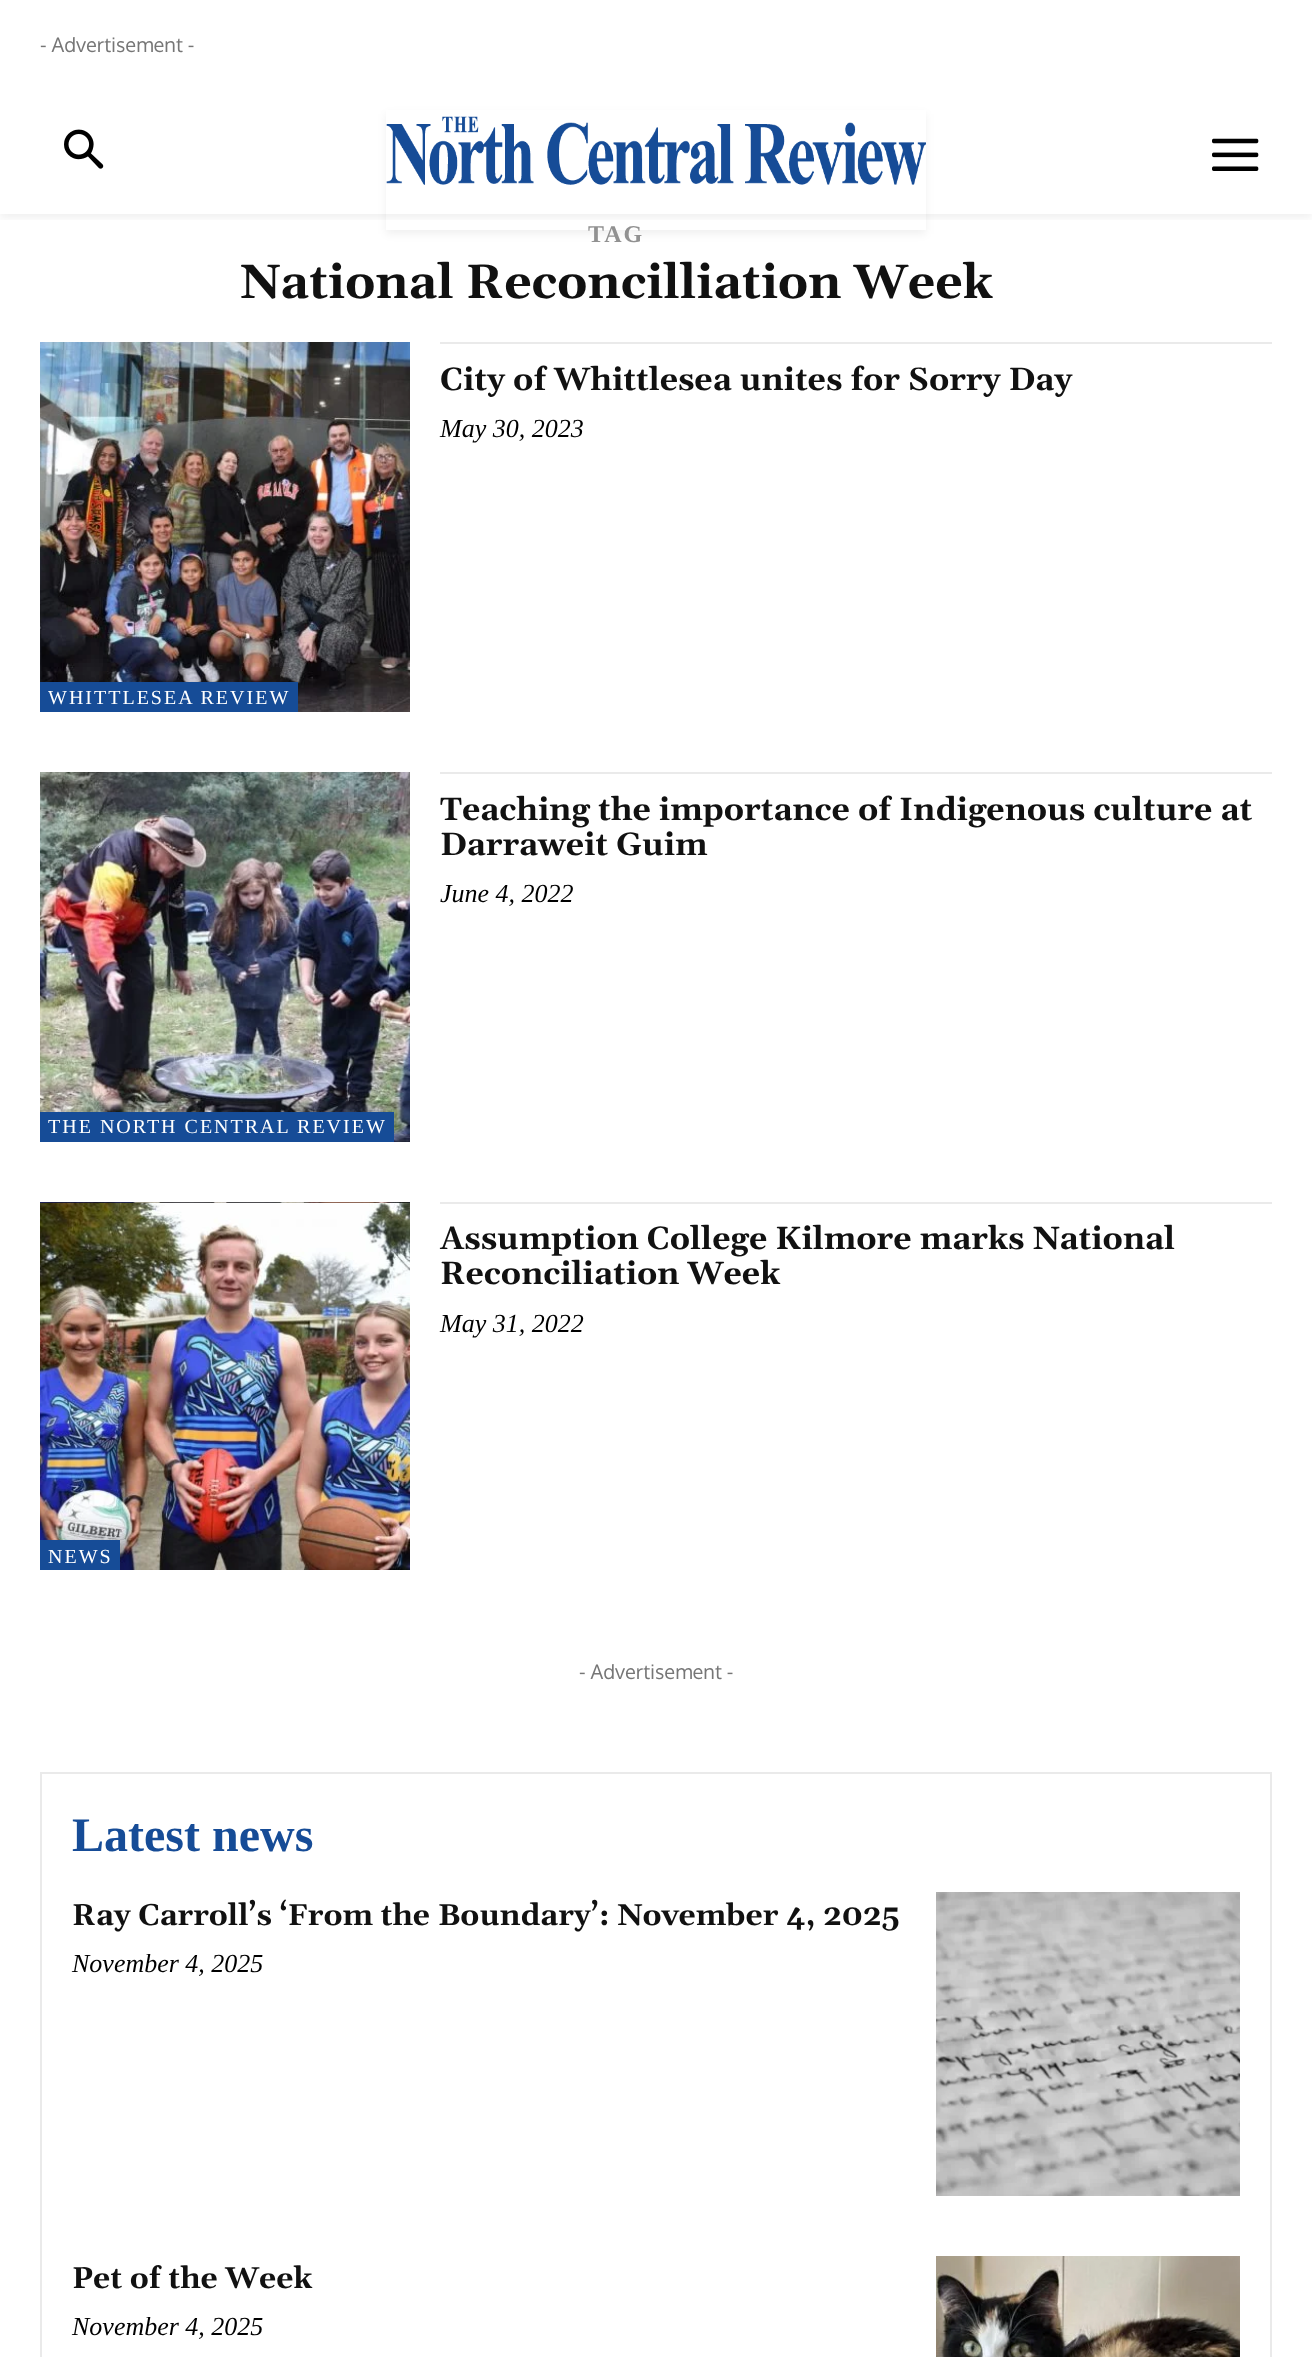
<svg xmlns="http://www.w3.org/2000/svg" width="1312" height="2357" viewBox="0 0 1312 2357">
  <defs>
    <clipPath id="clip1"><path d="M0 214h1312v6H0z"/></clipPath>
    <clipPath id="clip2"><path d="M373 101H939V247H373ZM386 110H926V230H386Z" clip-rule="evenodd"/></clipPath>
  </defs>
  <rect width="100%" height="100%" fill="#fff"/>
  <image x="64" y="129" width="40" height="40" href="img/1.png"/>
  <image x="386" y="116" width="540" height="69" href="img/2.png"/>
  <image x="1212" y="138" width="47" height="33" href="img/3.png"/>
  <g clip-path="url(#clip1)">
    <path d="M0 4h1312v214H0z" fill="#0000000f" filter="blur(4px)"/>
  </g>
  <g clip-path="url(#clip2)">
    <path d="M386 114h540v120H386z" fill="#0000000f" filter="blur(4px)"/>
  </g>
  <path d="M440 342h832v2H440z" fill="#eaeaea"/>
  <image x="40" y="342" width="370" height="370" href="img/4.png"/>
  <path d="M40 682h258v30H40z" fill="#164c97"/>
  <path d="M440 772h832v2H440z" fill="#eaeaea"/>
  <image x="40" y="772" width="370" height="370" href="img/5.png"/>
  <path d="M40 1112h354v30H40z" fill="#164c97"/>
  <path d="M440 1202h832v2H440z" fill="#eaeaea"/>
  <image x="40" y="1202" width="370" height="368" href="img/6.png"/>
  <path d="M40 1540h80v30H40z" fill="#164c97"/>
  <path d="M41 1773h1230v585H41z" fill="none" stroke="#eaeaea" stroke-width="2"/>
  <image x="936" y="1892" width="304" height="304" href="img/7.png"/>
  <image x="936" y="2256" width="304" height="101" href="img/8.png"/>
  <text x="40" y="52" font-family="Oxygen" font-size="20" fill="#767676">- Advertisement -</text>
  <text x="588" y="242" font-family="Liberation Serif" font-size="24" font-weight="bold" letter-spacing="2" fill="#919191">TAG</text>
  <text x="240" y="298" font-family="Gelasio" font-size="48" font-weight="bold" fill="#111">National Reconcilliation Week</text>
  <text x="440" y="390" font-family="Gelasio" font-size="32" font-weight="bold" fill="#111">City of Whittlesea unites for Sorry Day</text>
  <text x="440" y="437" font-family="Liberation Serif" font-size="26" font-style="italic" fill="#000">May 30, 2023</text>
  <text x="48" y="704" font-family="Liberation Serif" font-size="20" letter-spacing="2" fill="#fff">WHITTLESEA REVIEW</text>
  <g font-family="Gelasio" font-size="32" font-weight="bold" fill="#111">
    <text x="440" y="820">Teaching the importance of Indigenous culture at</text>
    <text x="440" y="855">Darraweit Guim</text>
  </g>
  <text x="440" y="902" font-family="Liberation Serif" font-size="26" font-style="italic" fill="#000">June 4, 2022</text>
  <text x="48" y="1133" font-family="Liberation Serif" font-size="20" letter-spacing="2" fill="#fff">THE NORTH CENTRAL REVIEW</text>
  <g font-family="Gelasio" font-size="32" font-weight="bold" fill="#111">
    <text x="440" y="1249">Assumption College Kilmore marks National</text>
    <text x="440" y="1284">Reconciliation Week</text>
  </g>
  <text x="440" y="1332" font-family="Liberation Serif" font-size="26" font-style="italic" fill="#000">May 31, 2022</text>
  <text x="48" y="1563" font-family="Liberation Serif" font-size="20" letter-spacing="2" fill="#fff">NEWS</text>
  <text x="579" y="1679" font-family="Oxygen" font-size="20" fill="#767676">- Advertisement -</text>
  <text x="72" y="1851" font-family="Liberation Serif" font-size="48" font-weight="bold" fill="#164c97">Latest news</text>
  <text x="72" y="1925" font-family="Gelasio" font-size="30" font-weight="bold" fill="#111">Ray Carroll’s ‘From the Boundary’: November 4, 2025</text>
  <text x="72" y="1972" font-family="Liberation Serif" font-size="26" font-style="italic" fill="#000">November 4, 2025</text>
  <text x="72" y="2288" font-family="Gelasio" font-size="30" font-weight="bold" fill="#111">Pet of the Week</text>
  <text x="72" y="2335" font-family="Liberation Serif" font-size="26" font-style="italic" fill="#000">November 4, 2025</text>
</svg>
